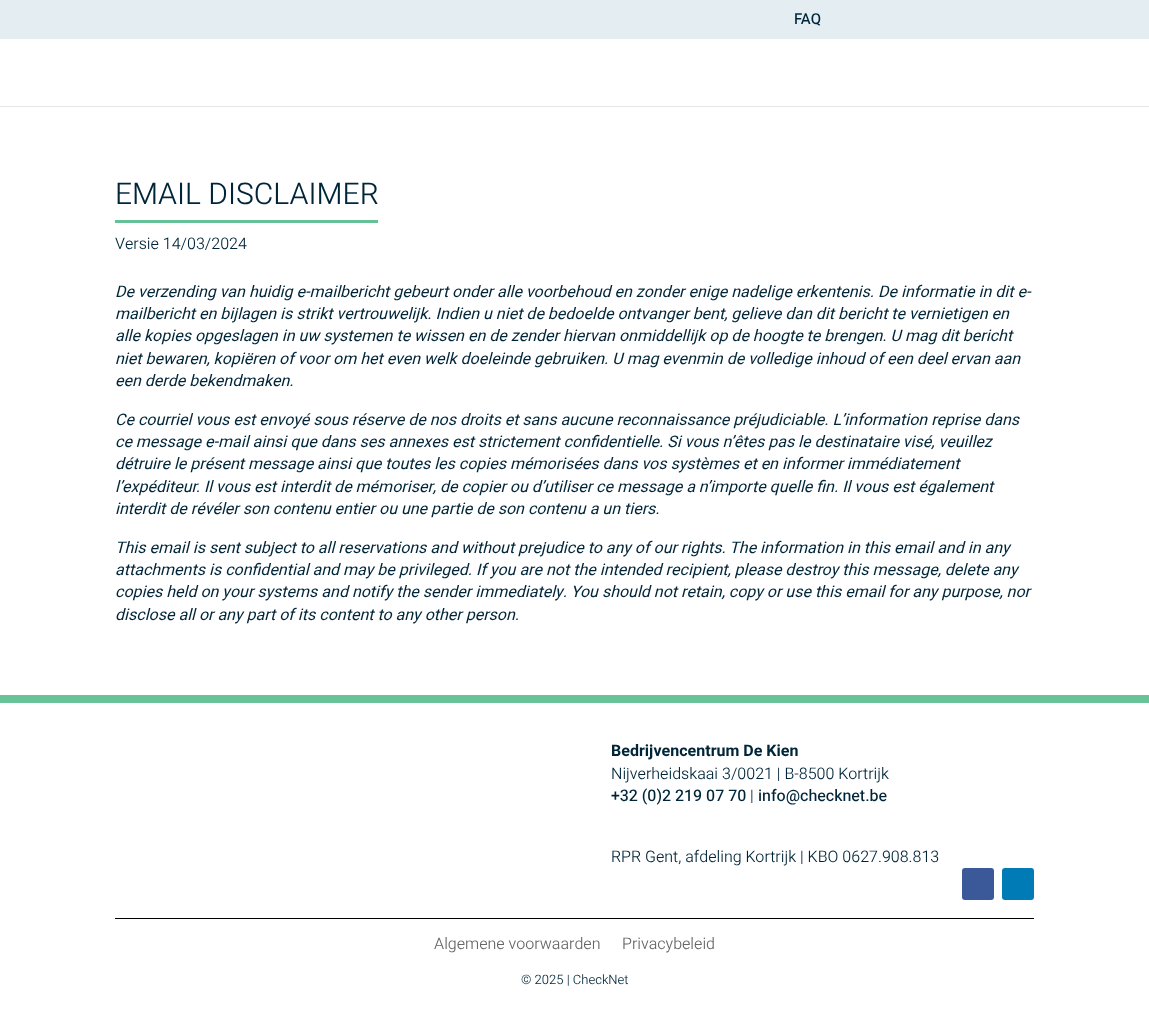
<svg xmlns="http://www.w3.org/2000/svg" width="1149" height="1030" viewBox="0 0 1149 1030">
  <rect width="100%" height="100%" fill="#fff"/>
  <path d="M0 0h1149v39H0z" fill="#e4edf2"/>
  <path d="M0 106h1149v1H0z" fill="#e6e6e6"/>
  <path d="M115 220h263v3H115z" fill="#67c197"/>
  <path d="M0 695h1149v8H0z" fill="#68c398"/>
  <rect x="962" y="868" width="32" height="32" rx="3" fill="#3b5998"/>
  <rect x="1002" y="868" width="32" height="32" rx="3" fill="#007bb6"/>
  <path d="M115 918h919v1H115z" fill="#000"/>
  <text x="794" y="24" font-family="Heebo" font-size="15" font-weight="500" fill="#002538">FAQ</text>
  <text x="115" y="204" font-family="Heebo" font-size="30" font-weight="300" fill="#002538">EMAIL DISCLAIMER</text>
  <text x="115" y="249" font-family="Heebo" font-size="16" font-weight="300" fill="#002538">Versie 14/03/2024</text>
  <g font-family="Heebo" font-size="16" font-style="italic" fill="#002538">
    <text x="115" y="297">De verzending van huidig e-mailbericht gebeurt onder alle voorbehoud en zonder enige nadelige erkentenis. De informatie in dit e-</text>
    <text x="115" y="319">mailbericht en bijlagen is strikt vertrouwelijk. Indien u niet de bedoelde ontvanger bent, gelieve dan dit bericht te vernietigen en</text>
    <text x="115" y="341">alle kopies opgeslagen in uw systemen te wissen en de zender hiervan onmiddellijk op de hoogte te brengen. U mag dit bericht</text>
    <text x="115" y="364">niet bewaren, kopiëren of voor om het even welk doeleinde gebruiken. U mag evenmin de volledige inhoud of een deel ervan aan</text>
    <text x="115" y="386">een derde bekendmaken.</text>
    <text x="115" y="425">Ce courriel vous est envoyé sous réserve de nos droits et sans aucune reconnaissance préjudiciable. L’information reprise dans</text>
    <text x="115" y="447">ce message e-mail ainsi que dans ses annexes est strictement confidentielle. Si vous n’êtes pas le destinataire visé, veuillez</text>
    <text x="115" y="469">détruire le présent message ainsi que toutes les copies mémorisées dans vos systèmes et en informer immédiatement</text>
    <text x="115" y="492">l’expéditeur. Il vous est interdit de mémoriser, de copier ou d’utiliser ce message a n’importe quelle fin. Il vous est également</text>
    <text x="115" y="514">interdit de révéler son contenu entier ou une partie de son contenu a un tiers.</text>
    <text x="115" y="553">This email is sent subject to all reservations and without prejudice to any of our rights. The information in this email and in any</text>
    <text x="115" y="575">attachments is confidential and may be privileged. If you are not the intended recipient, please destroy this message, delete any</text>
    <text x="115" y="597">copies held on your systems and notify the sender immediately. You should not retain, copy or use this email for any purpose, nor</text>
    <text x="115" y="620">disclose all or any part of its content to any other person.</text>
  </g>
  <text x="611" y="756" font-family="Heebo" font-size="16" font-weight="bold" fill="#002538">Bedrijvencentrum De Kien</text>
  <text x="611" y="779" font-family="Heebo" font-size="16" font-weight="300" fill="#002538">Nijverheidskaai 3/0021 | B-8500 Kortrijk</text>
  <text x="611" y="801" font-family="Heebo" font-size="16" font-weight="500" fill="#002538">+32 (0)2 219 07 70</text>
  <text x="750" y="801" font-family="Heebo" font-size="16" font-weight="300" fill="#002538">|</text>
  <text x="758" y="801" font-family="Heebo" font-size="16" font-weight="500" fill="#002538">info@checknet.be</text>
  <text x="611" y="862" font-family="Heebo" font-size="16" font-weight="300" fill="#002538">RPR Gent, afdeling Kortrijk | KBO 0627.908.813</text>
  <g font-family="Heebo" font-size="16" font-weight="300" fill="#666">
    <text x="434" y="949">Algemene voorwaarden</text>
    <text x="622" y="949">Privacybeleid</text>
  </g>
  <text x="521" y="984" font-family="Heebo" font-size="13" font-weight="300" fill="#002538">© 2025 | CheckNet</text>
</svg>
